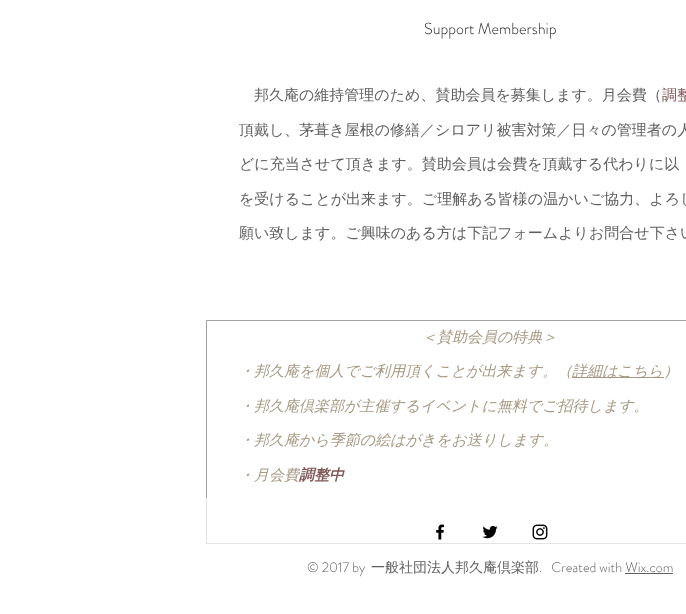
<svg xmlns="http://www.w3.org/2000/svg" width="686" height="614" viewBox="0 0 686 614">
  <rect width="100%" height="100%" fill="#fff"/>
  <path d="M572 377h92v1H572z" fill="#a69883"/>
  <path d="M206.5 320.5h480v223H206.5z" fill="none" stroke="#a0a09f"/>
  <path d="M206 498h480v46H206z" fill="#ffffffb3"/>
  <image x="436" y="524" width="9" height="16" href="img/1.png"/>
  <image x="482" y="525" width="16" height="14" href="img/2.png"/>
  <image x="532" y="524" width="16" height="16" href="img/3.png"/>
  <path d="M625 573h48v1H625z" fill="#605e5e"/>
  <text x="424" y="34" font-family="'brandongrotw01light'" font-size="16" font-weight="300" fill="#292929">Support Membership</text>
  <text x="254" y="100" font-family="WenQuanYi Zen Hei" font-size="15" font-weight="500" fill="#605e5e">邦久庵の維持管理のため、賛助会員を募集します。月会費（</text>
  <text x="662" y="100" font-family="WenQuanYi Zen Hei" font-size="15" font-weight="500" fill="#805858">調整</text>
  <g font-family="WenQuanYi Zen Hei" font-size="15" font-weight="500" fill="#605e5e">
    <text x="239" y="135">頂戴し、茅葺き屋根の修繕／シロアリ被害対策／日々の管理者の人</text>
    <text x="239" y="169">どに充当させて頂きます。賛助会員は会費を頂戴する代わりに以</text>
    <text x="239" y="204">を受けることが出来ます。ご理解ある皆様の温かいご協力、よろし</text>
    <text x="239" y="238">願い致します。ご興味のある方は下記フォームよりお問合せ下さい</text>
  </g>
  <g font-family="WenQuanYi Zen Hei" font-size="15" font-weight="500" font-style="italic" fill="#a69883">
    <text x="422" y="342">＜賛助会員の特典＞</text>
    <text x="239" y="376">・邦久庵を個人でご利用頂くことが出来ます。（</text>
    <text x="572" y="376">詳細はこちら）</text>
    <text x="239" y="411">・邦久庵倶楽部が主催するイベントに無料でご招待します。</text>
    <text x="239" y="445">・邦久庵から季節の絵はがきをお送りします。</text>
    <text x="239" y="480">・月会費</text>
  </g>
  <text x="299" y="480" font-family="WenQuanYi Zen Hei" font-size="15" font-weight="bold" font-style="italic" fill="#805858">調整中</text>
  <text x="307" y="572" font-family="'brandongrotw01light'" font-size="14" font-weight="300" fill="#605e5e">© 2017 by</text>
  <text x="371" y="572" font-family="WenQuanYi Zen Hei" font-size="14" font-weight="500" fill="#605e5e">一般社団法人邦久庵倶楽部</text>
  <text x="539" y="572" font-family="'brandongrotw01light'" font-size="14" font-weight="300" fill="#605e5e" xml:space="preserve">.   Created with Wix.com</text>
</svg>
